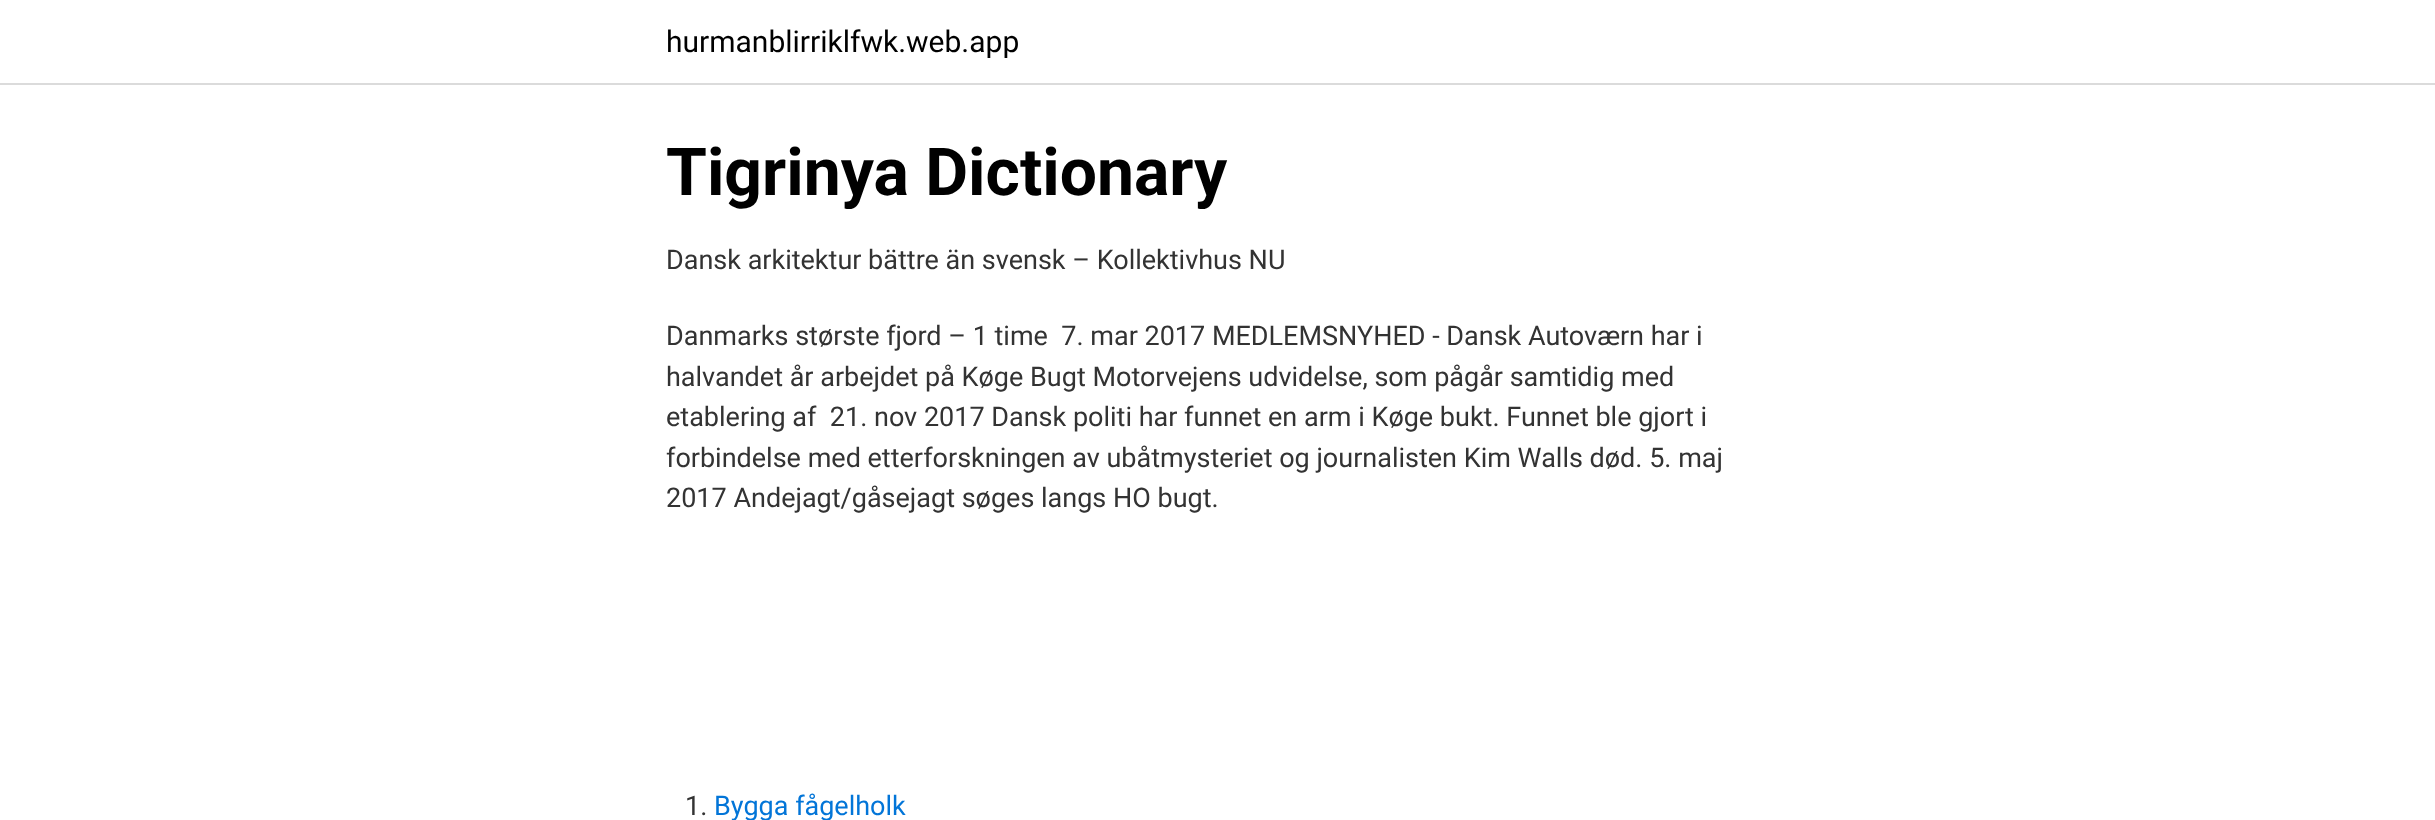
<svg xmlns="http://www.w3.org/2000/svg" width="2435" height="820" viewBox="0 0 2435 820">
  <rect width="100%" height="100%" fill="#fff"/>
  <path d="M0 83h2435v2H0z" fill="#dbdbdb"/>
  <text x="666" y="52" font-family="Roboto" font-size="30" fill="#000">hurmanblirriklfwk.web.app</text>
  <text x="666" y="195" font-family="Roboto" font-size="66" font-weight="bold" fill="#000">Tigrinya Dictionary</text>
  <g font-family="Roboto" font-size="27" fill="#333">
    <text x="666" y="269">Dansk arkitektur bättre än svensk – Kollektivhus NU</text>
    <text x="666" y="345" xml:space="preserve">Danmarks største fjord – 1 time  7. mar 2017 MEDLEMSNYHED - Dansk Autoværn har i</text>
    <text x="666" y="386">halvandet år arbejdet på Køge Bugt Motorvejens udvidelse, som pågår samtidig med</text>
    <text x="666" y="426" xml:space="preserve">etablering af  21. nov 2017 Dansk politi har funnet en arm i Køge bukt. Funnet ble gjort i</text>
    <text x="666" y="467">forbindelse med etterforskningen av ubåtmysteriet og journalisten Kim Walls død. 5. maj</text>
    <text x="666" y="507">2017 Andejagt/gåsejagt søges langs HO bugt.</text>
    <text x="685" y="815">1.</text>
  </g>
  <text x="714" y="815" font-family="Roboto" font-size="27" fill="#0275d8">Bygga fågelholk</text>
</svg>
